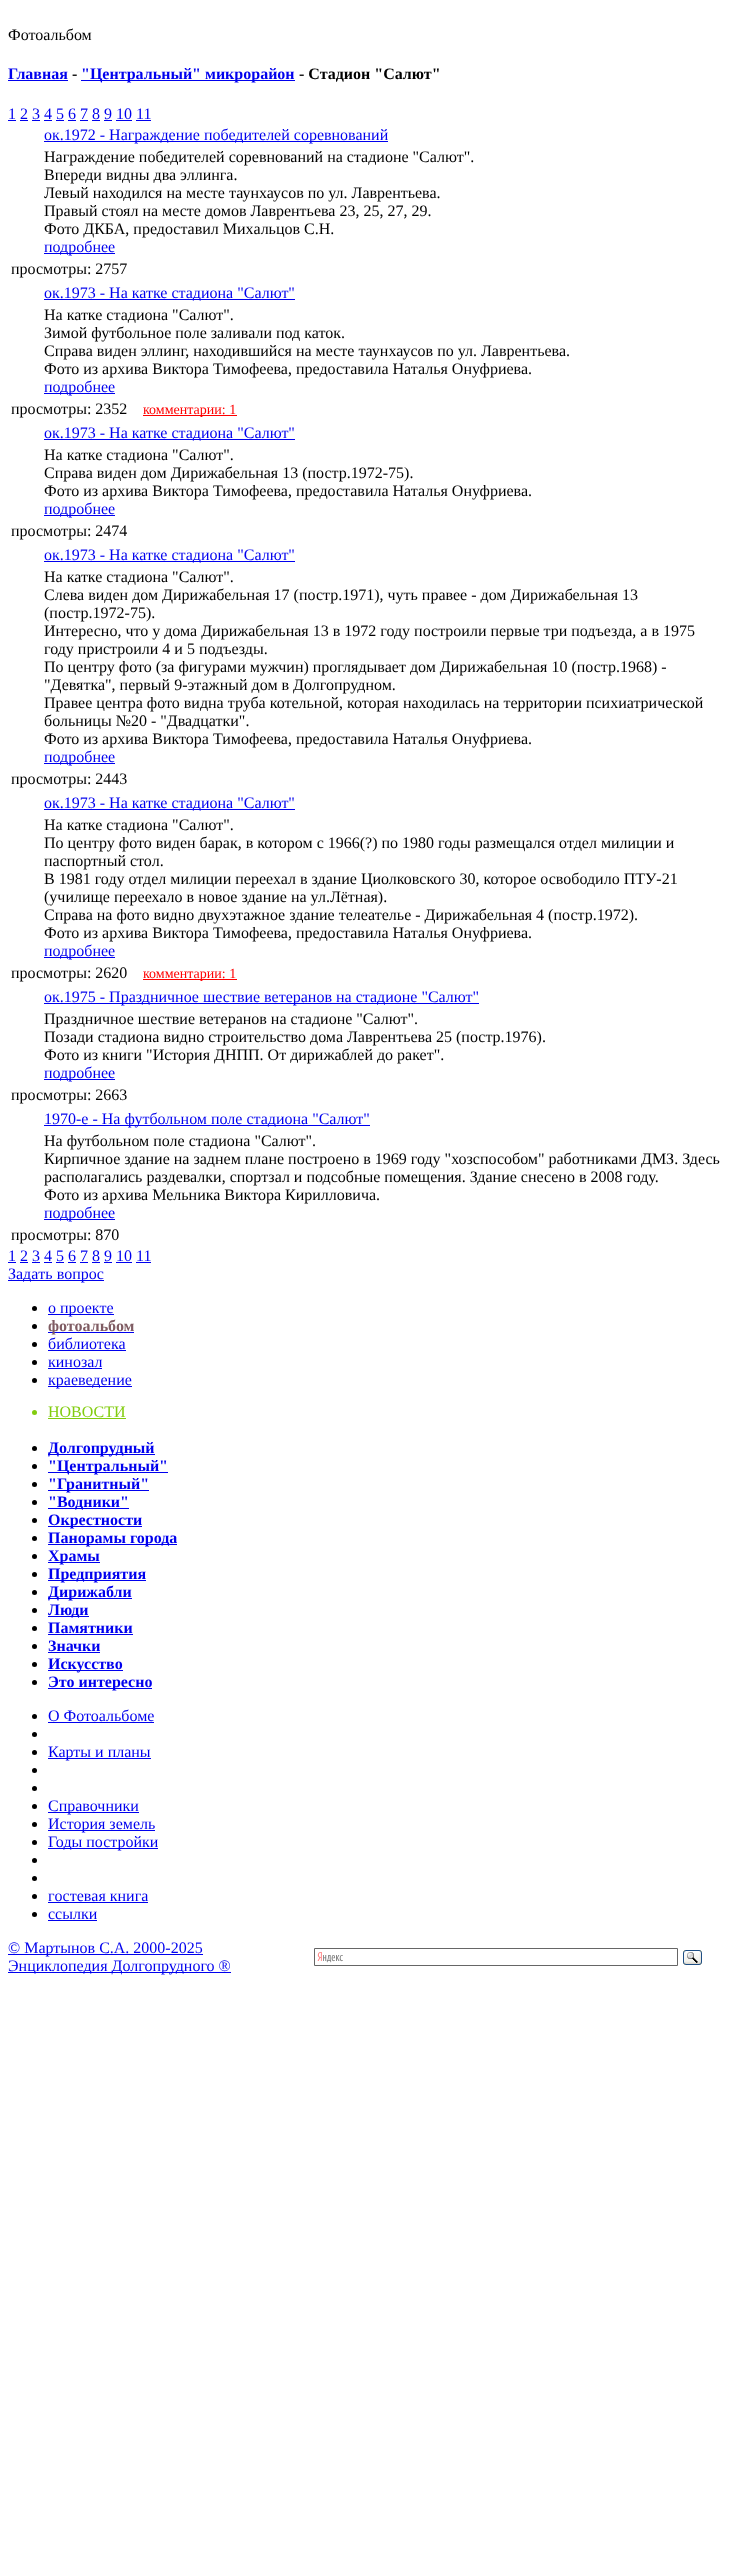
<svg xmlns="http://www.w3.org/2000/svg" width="737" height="2561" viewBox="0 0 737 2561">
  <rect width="100%" height="100%" fill="#fff"/>
  <path d="M8 80h60v1H8z" fill="#00e"/>
  <path d="M81 80h214v1H81z" fill="#00e"/>
  <path d="M8 120h8v1H8z" fill="#00e"/>
  <path d="M20 120h8v1H20z" fill="#00e"/>
  <path d="M32 120h8v1H32z" fill="#00e"/>
  <path d="M44 120h8v1H44z" fill="#00e"/>
  <path d="M56 120h8v1H56z" fill="#00e"/>
  <path d="M68 120h8v1H68z" fill="#00e"/>
  <path d="M80 120h8v1H80z" fill="#00e"/>
  <path d="M92 120h8v1H92z" fill="#00e"/>
  <path d="M104 120h8v1H104z" fill="#00e"/>
  <path d="M116 120h16v1H116z" fill="#00e"/>
  <path d="M136 120h15v1H136z" fill="#00e"/>
  <path d="M44 141h344v1H44z" fill="#00e"/>
  <path d="M44 253h71v1H44z" fill="#00e"/>
  <path d="M44 299h251v1H44z" fill="#00e"/>
  <path d="M44 393h71v1H44z" fill="#00e"/>
  <path d="M143 415h94v1H143z" fill="#f00"/>
  <path d="M44 439h251v1H44z" fill="#00e"/>
  <path d="M44 515h71v1H44z" fill="#00e"/>
  <path d="M44 561h251v1H44z" fill="#00e"/>
  <path d="M44 763h71v1H44z" fill="#00e"/>
  <path d="M44 809h251v1H44z" fill="#00e"/>
  <path d="M44 957h71v1H44z" fill="#00e"/>
  <path d="M143 979h94v1H143z" fill="#f00"/>
  <path d="M44 1003h435v1H44z" fill="#00e"/>
  <path d="M44 1079h71v1H44z" fill="#00e"/>
  <path d="M44 1125h326v1H44z" fill="#00e"/>
  <path d="M44 1219h71v1H44z" fill="#00e"/>
  <path d="M8 1262h8v1H8z" fill="#00e"/>
  <path d="M20 1262h8v1H20z" fill="#00e"/>
  <path d="M32 1262h8v1H32z" fill="#00e"/>
  <path d="M44 1262h8v1H44z" fill="#00e"/>
  <path d="M56 1262h8v1H56z" fill="#00e"/>
  <path d="M68 1262h8v1H68z" fill="#00e"/>
  <path d="M80 1262h8v1H80z" fill="#00e"/>
  <path d="M92 1262h8v1H92z" fill="#00e"/>
  <path d="M104 1262h8v1H104z" fill="#00e"/>
  <path d="M116 1262h16v1H116z" fill="#00e"/>
  <path d="M136 1262h15v1H136z" fill="#00e"/>
  <path d="M8 1280h96v1H8z" fill="#00e"/>
  <circle cx="34.5" cy="1308.5" r="2.5" fill="#000"/>
  <path d="M48 1314h66v1H48z" fill="#00e"/>
  <circle cx="34.5" cy="1326.5" r="2.5" fill="#000"/>
  <path d="M48 1332h86v1H48z" fill="#00e"/>
  <circle cx="34.5" cy="1344.5" r="2.5" fill="#000"/>
  <path d="M48 1350h78v1H48z" fill="#00e"/>
  <circle cx="34.5" cy="1362.5" r="2.5" fill="#000"/>
  <path d="M48 1368h54v1H48z" fill="#00e"/>
  <circle cx="34.5" cy="1380.5" r="2.5" fill="#000"/>
  <path d="M48 1386h84v1H48z" fill="#00e"/>
  <circle cx="34.5" cy="1412.5" r="2.5" fill="#82cc0f"/>
  <path d="M48 1418h78v1H48z" fill="#82cc0f"/>
  <circle cx="34.5" cy="1448.5" r="2.5" fill="#000"/>
  <path d="M48 1454h107v1H48z" fill="#00e"/>
  <circle cx="34.5" cy="1466.5" r="2.5" fill="#000"/>
  <path d="M48 1472h120v1H48z" fill="#00e"/>
  <circle cx="34.5" cy="1484.5" r="2.5" fill="#000"/>
  <path d="M48 1490h101v1H48z" fill="#00e"/>
  <circle cx="34.5" cy="1502.5" r="2.5" fill="#000"/>
  <path d="M48 1508h81v1H48z" fill="#00e"/>
  <circle cx="34.5" cy="1520.5" r="2.5" fill="#000"/>
  <path d="M48 1526h94v1H48z" fill="#00e"/>
  <circle cx="34.5" cy="1538.5" r="2.5" fill="#000"/>
  <path d="M48 1544h129v1H48z" fill="#00e"/>
  <circle cx="34.5" cy="1556.5" r="2.5" fill="#000"/>
  <path d="M48 1562h52v1H48z" fill="#00e"/>
  <circle cx="34.5" cy="1574.5" r="2.5" fill="#000"/>
  <path d="M48 1580h98v1H48z" fill="#00e"/>
  <circle cx="34.5" cy="1592.5" r="2.5" fill="#000"/>
  <path d="M48 1598h84v1H48z" fill="#00e"/>
  <circle cx="34.5" cy="1610.5" r="2.5" fill="#000"/>
  <path d="M48 1616h41v1H48z" fill="#00e"/>
  <circle cx="34.5" cy="1628.5" r="2.5" fill="#000"/>
  <path d="M48 1634h85v1H48z" fill="#00e"/>
  <circle cx="34.5" cy="1646.5" r="2.5" fill="#000"/>
  <path d="M48 1652h52v1H48z" fill="#00e"/>
  <circle cx="34.5" cy="1664.5" r="2.5" fill="#000"/>
  <path d="M48 1670h75v1H48z" fill="#00e"/>
  <circle cx="34.5" cy="1682.5" r="2.5" fill="#000"/>
  <path d="M48 1688h104v1H48z" fill="#00e"/>
  <circle cx="34.5" cy="1716.5" r="2.5" fill="#000"/>
  <path d="M48 1722h106v1H48z" fill="#00e"/>
  <circle cx="34.5" cy="1734.5" r="2.5" fill="#000"/>
  <circle cx="34.5" cy="1752.5" r="2.5" fill="#000"/>
  <path d="M48 1758h103v1H48z" fill="#00e"/>
  <circle cx="34.5" cy="1770.5" r="2.5" fill="#000"/>
  <circle cx="34.5" cy="1788.5" r="2.5" fill="#000"/>
  <circle cx="34.5" cy="1806.5" r="2.5" fill="#000"/>
  <path d="M48 1812h91v1H48z" fill="#00e"/>
  <circle cx="34.5" cy="1824.5" r="2.5" fill="#000"/>
  <path d="M48 1830h107v1H48z" fill="#00e"/>
  <circle cx="34.5" cy="1842.5" r="2.5" fill="#000"/>
  <path d="M48 1848h110v1H48z" fill="#00e"/>
  <circle cx="34.5" cy="1860.5" r="2.5" fill="#000"/>
  <circle cx="34.5" cy="1878.5" r="2.5" fill="#000"/>
  <circle cx="34.5" cy="1896.5" r="2.5" fill="#000"/>
  <path d="M48 1902h100v1H48z" fill="#00e"/>
  <circle cx="34.5" cy="1914.5" r="2.5" fill="#000"/>
  <path d="M48 1920h49v1H48z" fill="#00e"/>
  <path d="M8 1954h195v1H8z" fill="#00e"/>
  <path d="M8 1972h223v1H8z" fill="#00e"/>
  <image x="317" y="1952" width="26" height="11" href="img/1.png"/>
  <path d="M314.5 1948.5h363v17H314.5z" fill="none" stroke="#666"/>
  <image x="683" y="1950" width="19" height="15" href="img/2.png"/>
  <text x="8" y="40" font-family="Liberation Serif" font-size="16" fill="#000">Фотоальбом</text>
  <text x="8" y="79" font-family="Liberation Serif" font-size="16" font-weight="bold" fill="#00e">Главная</text>
  <text x="72" y="79" font-family="Liberation Serif" font-size="16" font-weight="bold" fill="#000">-</text>
  <text x="81" y="79" font-family="Liberation Serif" font-size="16" font-weight="bold" fill="#00e">"Центральный" микрорайон</text>
  <text x="299" y="79" font-family="Liberation Serif" font-size="16" font-weight="bold" fill="#000">- Стадион "Салют"</text>
  <g font-family="Liberation Serif" font-size="16" fill="#00e">
    <text x="8" y="119">1 2 3 4 5 6 7 8 9 10 11</text>
    <text x="44" y="140">ок.1972 - Награждение победителей соревнований</text>
  </g>
  <g font-family="Liberation Serif" font-size="16" fill="#000">
    <text x="44" y="162">Награждение победителей соревнований на стадионе "Салют".</text>
    <text x="44" y="180">Впереди видны два эллинга.</text>
    <text x="44" y="198">Левый находился на месте таунхаусов по ул. Лаврентьева.</text>
    <text x="44" y="216">Правый стоял на месте домов Лаврентьева 23, 25, 27, 29.</text>
    <text x="44" y="234">Фото ДКБА, предоставил Михальцов С.Н.</text>
  </g>
  <text x="44" y="252" font-family="Liberation Serif" font-size="16" fill="#00e">подробнее</text>
  <text x="11" y="274" font-family="Liberation Serif" font-size="16" fill="#000">просмотры: 2757</text>
  <text x="44" y="298" font-family="Liberation Serif" font-size="16" fill="#00e">ок.1973 - На катке стадиона "Салют"</text>
  <g font-family="Liberation Serif" font-size="16" fill="#000">
    <text x="44" y="320">На катке стадиона "Салют".</text>
    <text x="44" y="338">Зимой футбольное поле заливали под каток.</text>
    <text x="44" y="356">Справа виден эллинг, находившийся на месте таунхаусов по ул. Лаврентьева.</text>
    <text x="44" y="374">Фото из архива Виктора Тимофеева, предоставила Наталья Онуфриева.</text>
  </g>
  <text x="44" y="392" font-family="Liberation Serif" font-size="16" fill="#00e">подробнее</text>
  <text x="11" y="414" font-family="Liberation Serif" font-size="16" fill="#000">просмотры: 2352</text>
  <text x="143" y="414" font-family="Liberation Serif" font-size="14" fill="#f00">комментарии: 1</text>
  <text x="44" y="438" font-family="Liberation Serif" font-size="16" fill="#00e">ок.1973 - На катке стадиона "Салют"</text>
  <g font-family="Liberation Serif" font-size="16" fill="#000">
    <text x="44" y="460">На катке стадиона "Салют".</text>
    <text x="44" y="478">Справа виден дом Дирижабельная 13 (постр.1972-75).</text>
    <text x="44" y="496">Фото из архива Виктора Тимофеева, предоставила Наталья Онуфриева.</text>
  </g>
  <text x="44" y="514" font-family="Liberation Serif" font-size="16" fill="#00e">подробнее</text>
  <text x="11" y="536" font-family="Liberation Serif" font-size="16" fill="#000">просмотры: 2474</text>
  <text x="44" y="560" font-family="Liberation Serif" font-size="16" fill="#00e">ок.1973 - На катке стадиона "Салют"</text>
  <g font-family="Liberation Serif" font-size="16" fill="#000">
    <text x="44" y="582">На катке стадиона "Салют".</text>
    <text x="44" y="600">Слева виден дом Дирижабельная 17 (постр.1971), чуть правее - дом Дирижабельная 13</text>
    <text x="44" y="618">(постр.1972-75).</text>
    <text x="44" y="636">Интересно, что у дома Дирижабельная 13 в 1972 году построили первые три подъезда, а в 1975</text>
    <text x="44" y="654">году пристроили 4 и 5 подъезды.</text>
    <text x="44" y="672">По центру фото (за фигурами мужчин) проглядывает дом Дирижабельная 10 (постр.1968) -</text>
    <text x="44" y="690">"Девятка", первый 9-этажный дом в Долгопрудном.</text>
    <text x="44" y="708">Правее центра фото видна труба котельной, которая находилась на территории психиатрической</text>
    <text x="44" y="726">больницы №20 - "Двадцатки".</text>
    <text x="44" y="744">Фото из архива Виктора Тимофеева, предоставила Наталья Онуфриева.</text>
  </g>
  <text x="44" y="762" font-family="Liberation Serif" font-size="16" fill="#00e">подробнее</text>
  <text x="11" y="784" font-family="Liberation Serif" font-size="16" fill="#000">просмотры: 2443</text>
  <text x="44" y="808" font-family="Liberation Serif" font-size="16" fill="#00e">ок.1973 - На катке стадиона "Салют"</text>
  <g font-family="Liberation Serif" font-size="16" fill="#000">
    <text x="44" y="830">На катке стадиона "Салют".</text>
    <text x="44" y="848">По центру фото виден барак, в котором с 1966(?) по 1980 годы размещался отдел милиции и</text>
    <text x="44" y="866">паспортный стол.</text>
    <text x="44" y="884">В 1981 году отдел милиции переехал в здание Циолковского 30, которое освободило ПТУ-21</text>
    <text x="44" y="902">(училище переехало в новое здание на ул.Лётная).</text>
    <text x="44" y="920">Справа на фото видно двухэтажное здание телеателье - Дирижабельная 4 (постр.1972).</text>
    <text x="44" y="938">Фото из архива Виктора Тимофеева, предоставила Наталья Онуфриева.</text>
  </g>
  <text x="44" y="956" font-family="Liberation Serif" font-size="16" fill="#00e">подробнее</text>
  <text x="11" y="978" font-family="Liberation Serif" font-size="16" fill="#000">просмотры: 2620</text>
  <text x="143" y="978" font-family="Liberation Serif" font-size="14" fill="#f00">комментарии: 1</text>
  <text x="44" y="1002" font-family="Liberation Serif" font-size="16" fill="#00e">ок.1975 - Праздничное шествие ветеранов на стадионе "Салют"</text>
  <g font-family="Liberation Serif" font-size="16" fill="#000">
    <text x="44" y="1024">Праздничное шествие ветеранов на стадионе "Салют".</text>
    <text x="44" y="1042">Позади стадиона видно строительство дома Лаврентьева 25 (постр.1976).</text>
    <text x="44" y="1060">Фото из книги "История ДНПП. От дирижаблей до ракет".</text>
  </g>
  <text x="44" y="1078" font-family="Liberation Serif" font-size="16" fill="#00e">подробнее</text>
  <text x="11" y="1100" font-family="Liberation Serif" font-size="16" fill="#000">просмотры: 2663</text>
  <text x="44" y="1124" font-family="Liberation Serif" font-size="16" fill="#00e">1970-е - На футбольном поле стадиона "Салют"</text>
  <g font-family="Liberation Serif" font-size="16" fill="#000">
    <text x="44" y="1146">На футбольном поле стадиона "Салют".</text>
    <text x="44" y="1164">Кирпичное здание на заднем плане построено в 1969 году "хозспособом" работниками ДМЗ. Здесь</text>
    <text x="44" y="1182">располагались раздевалки, спортзал и подсобные помещения. Здание снесено в 2008 году.</text>
    <text x="44" y="1200">Фото из архива Мельника Виктора Кирилловича.</text>
  </g>
  <text x="44" y="1218" font-family="Liberation Serif" font-size="16" fill="#00e">подробнее</text>
  <text x="11" y="1240" font-family="Liberation Serif" font-size="16" fill="#000">просмотры: 870</text>
  <g font-family="Liberation Serif" font-size="16" fill="#00e">
    <text x="8" y="1261">1 2 3 4 5 6 7 8 9 10 11</text>
    <text x="8" y="1279">Зaдaть вoпрoс</text>
    <text x="48" y="1313">о проекте</text>
  </g>
  <text x="48" y="1331" font-family="Liberation Serif" font-size="16" font-weight="bold" fill="#7f5c63">фотоальбом</text>
  <g font-family="Liberation Serif" font-size="16" fill="#00e">
    <text x="48" y="1349">библиотека</text>
    <text x="48" y="1367">кинозал</text>
    <text x="48" y="1385">краеведение</text>
  </g>
  <text x="48" y="1417" font-family="Liberation Serif" font-size="16" fill="#82cc0f">НОВОСТИ</text>
  <g font-family="Liberation Serif" font-size="16" font-weight="bold" fill="#00e">
    <text x="48" y="1453">Долгопрудный</text>
    <text x="48" y="1471">"Центральный"</text>
    <text x="48" y="1489">"Гранитный"</text>
    <text x="48" y="1507">"Водники"</text>
    <text x="48" y="1525">Окрестности</text>
    <text x="48" y="1543">Панорамы города</text>
    <text x="48" y="1561">Храмы</text>
    <text x="48" y="1579">Предприятия</text>
    <text x="48" y="1597">Дирижабли</text>
    <text x="48" y="1615">Люди</text>
    <text x="48" y="1633">Памятники</text>
    <text x="48" y="1651">Значки</text>
    <text x="48" y="1669">Искусство</text>
    <text x="48" y="1687">Это интересно</text>
  </g>
  <g font-family="Liberation Serif" font-size="16" fill="#00e">
    <text x="48" y="1721">О Фотоальбоме</text>
    <text x="48" y="1757">Карты и планы</text>
    <text x="48" y="1811">Справочники</text>
    <text x="48" y="1829">История земель</text>
    <text x="48" y="1847">Годы постройки</text>
    <text x="48" y="1901">гocтeвaя книгa</text>
    <text x="48" y="1919">ссылки</text>
    <text x="8" y="1953">© Мартынов С.А. 2000-2025</text>
    <text x="8" y="1971">Энциклопедия Долгопрудного ®</text>
  </g>
</svg>
